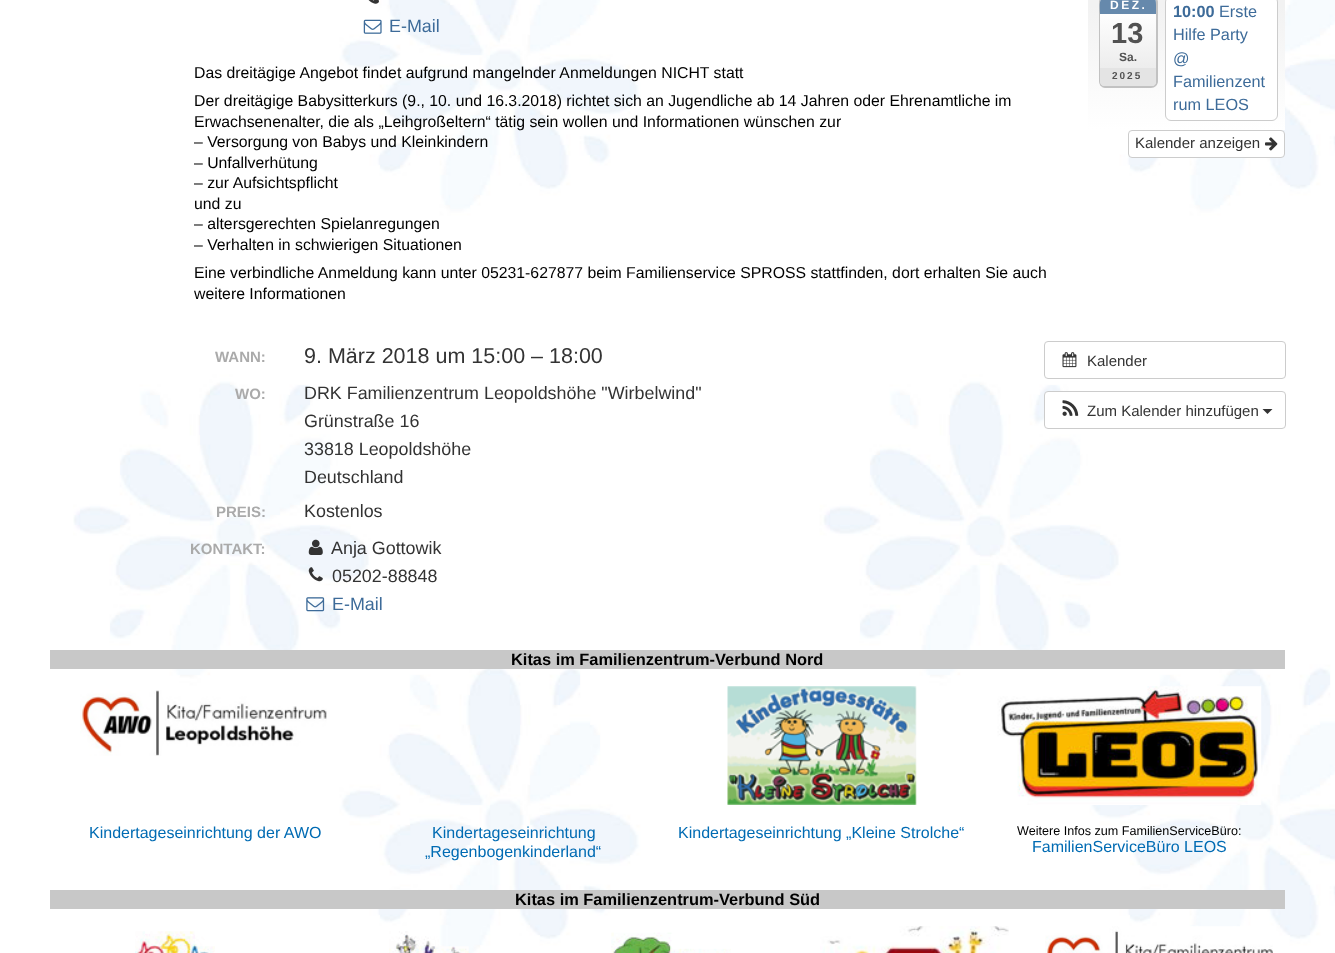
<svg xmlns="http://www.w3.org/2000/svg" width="1335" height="953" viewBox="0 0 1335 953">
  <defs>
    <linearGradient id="g1" gradientUnits="userSpaceOnUse" x1="1186" y1="-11" x2="1186" y2="130"><stop offset="0" stop-color="#f2f2f2"/><stop offset="0.12" stop-color="#f2f2f2"/><stop offset="1" stop-color="#fff"/></linearGradient>
    <linearGradient id="g2" gradientUnits="userSpaceOnUse" x1="1128" y1="-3.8" x2="1128" y2="86"><stop offset="0" stop-color="#fff"/><stop offset="0.16" stop-color="#fff"/><stop offset="1" stop-color="#e7e7e7"/></linearGradient>
  </defs>
  <rect width="100%" height="100%" fill="#fff"/>
  <image x="73" y="0" width="1262" height="953" href="img/1.png"/>
  <image x="368" y="0" width="11" height="4" href="img/2.png"/>
  <image x="363" y="19" width="19" height="15" href="img/3.png"/>
  <path d="M1088 0h197v130H1088z" fill="url(#g1)"/>
  <path d="M1100 0h56v86H1100z" fill="url(#g2)"/>
  <path d="M1105-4H1151C1155-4 1158-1 1158 2V81C1158 85 1155 88 1151 88H1105C1102 88 1099 85 1099 81V2C1099-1 1102-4 1105-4ZM1105-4H1151C1154-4 1156-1 1156 2V81C1156 84 1154 86 1151 86H1105C1102 86 1100 84 1100 81V2C1100-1 1102-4 1105-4Z" fill="#c2c2c2" fill-rule="evenodd"/>
  <path d="M1105-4C1098-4 1100 10 1100 14H1156V5C1156 2 1156-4 1151-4Z" fill="#6689ac"/>
  <path d="M1100 68V81C1100 83 1101 85 1103 86H1153C1154 86 1156 84 1156 83V68Z" fill="#e4e4e4"/>
  <rect x="1165.5" y="-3.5" width="112" height="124" rx="5.5" fill="#fff" stroke="#ccc"/>
  <rect x="1128.5" y="130.5" width="156" height="27" rx="3.5" fill="#fff" stroke="#ccc"/>
  <image x="1265" y="137" width="13" height="14" href="img/4.png"/>
  <image x="308" y="539" width="15" height="16" href="img/5.png"/>
  <image x="308" y="567" width="15" height="15" href="img/6.png"/>
  <image x="306" y="597" width="19" height="15" href="img/7.png"/>
  <rect x="1044.5" y="341.5" width="241" height="37" rx="3.5" fill="none" stroke="#ccc"/>
  <image x="1062" y="352" width="15" height="16" href="img/8.png"/>
  <rect x="1044.5" y="391.5" width="241" height="37" rx="3.5" fill="#fff" stroke="#ccc"/>
  <image x="1062" y="400" width="17" height="16" href="img/9.png"/>
  <path d="M1262.5 409H1272.5L1267.5 414Z" fill="#333"/>
  <path d="M50 650h1235v19H50z" fill="#c8c8c8"/>
  <image x="80" y="690" width="247" height="66" href="img/10.png"/>
  <image x="727" y="686" width="190" height="119" href="img/11.png"/>
  <image x="997" y="686" width="265" height="119" href="img/12.png"/>
  <path d="M50 890h1235v19H50z" fill="#c8c8c8"/>
  <image x="135" y="931" width="80" height="22" href="img/13.png"/>
  <image x="389" y="931" width="80" height="22" href="img/14.png"/>
  <image x="611" y="932" width="120" height="21" href="img/15.png"/>
  <image x="820" y="926" width="189" height="27" href="img/16.png"/>
  <image x="1045" y="926" width="228" height="27" href="img/17.png"/>
  <text x="389" y="32" font-family="Liberation Sans" font-size="17.9" fill="#3d6b99">E-Mail</text>
  <g font-family="Liberation Sans" font-size="15.8" fill="#000">
    <text x="194" y="78">Das dreitägige Angebot findet aufgrund mangelnder Anmeldungen NICHT statt</text>
    <text x="194" y="106">Der dreitägige Babysitterkurs (9., 10. und 16.3.2018) richtet sich an Jugendliche ab 14 Jahren oder Ehrenamtliche im</text>
    <text x="194" y="127">Erwachsenenalter, die als „Leihgroßeltern“ tätig sein wollen und Informationen wünschen zur</text>
    <text x="194" y="147">– Versorgung von Babys und Kleinkindern</text>
    <text x="194" y="168">– Unfallverhütung</text>
    <text x="194" y="188">– zur Aufsichtspflicht</text>
    <text x="194" y="209">und zu</text>
    <text x="194" y="229">– altersgerechten Spielanregungen</text>
    <text x="194" y="250">– Verhalten in schwierigen Situationen</text>
    <text x="194" y="278">Eine verbindliche Anmeldung kann unter 05231-627877 beim Familienservice SPROSS stattfinden, dort erhalten Sie auch</text>
    <text x="194" y="299">weitere Informationen</text>
  </g>
  <text x="1110" y="9" font-family="Liberation Sans" font-size="12" font-weight="bold" letter-spacing="2.5" fill="#fff">DEZ.</text>
  <text x="1111" y="43" font-family="Liberation Sans" font-size="29" font-weight="bold" fill="#525252">13</text>
  <text x="1119" y="61" font-family="Liberation Sans" font-size="12" font-weight="bold" fill="#525252">Sa.</text>
  <text x="1112" y="79" font-family="Liberation Sans" font-size="10" font-weight="bold" letter-spacing="2" fill="#525252">2025</text>
  <text x="1173" y="17" font-family="Liberation Sans" font-size="16.25" font-weight="bold" fill="#3d6b99">10:00</text>
  <g font-family="Liberation Sans" font-size="16.25" fill="#3d6b99">
    <text x="1219" y="17">Erste</text>
    <text x="1173" y="40">Hilfe Party</text>
    <text x="1173" y="64">@</text>
    <text x="1173" y="87">Familienzent</text>
    <text x="1173" y="110">rum LEOS</text>
  </g>
  <text x="1135" y="148" font-family="Liberation Sans" font-size="15" fill="#333">Kalender anzeigen</text>
  <text x="215" y="362" font-family="Liberation Sans" font-size="15" font-weight="bold" fill="#aaa">WANN:</text>
  <text x="304" y="363" font-family="Liberation Sans" font-size="21.5" fill="#333">9. März 2018 um 15:00 – 18:00</text>
  <text x="235" y="399" font-family="Liberation Sans" font-size="15" font-weight="bold" fill="#aaa">WO:</text>
  <g font-family="Liberation Sans" font-size="17.9" fill="#333">
    <text x="304" y="399">DRK Familienzentrum Leopoldshöhe "Wirbelwind"</text>
    <text x="304" y="427">Grünstraße 16</text>
    <text x="304" y="455">33818 Leopoldshöhe</text>
    <text x="304" y="483">Deutschland</text>
  </g>
  <text x="216" y="517" font-family="Liberation Sans" font-size="15" font-weight="bold" fill="#aaa">PREIS:</text>
  <text x="304" y="517" font-family="Liberation Sans" font-size="17.9" fill="#333">Kostenlos</text>
  <text x="190" y="554" font-family="Liberation Sans" font-size="15" font-weight="bold" fill="#aaa">KONTAKT:</text>
  <g font-family="Liberation Sans" font-size="17.9" fill="#333">
    <text x="331" y="554">Anja Gottowik</text>
    <text x="332" y="582">05202-88848</text>
  </g>
  <text x="332" y="610" font-family="Liberation Sans" font-size="17.9" fill="#3d6b99">E-Mail</text>
  <g font-family="Liberation Sans" font-size="15" fill="#333">
    <text x="1087" y="366">Kalender</text>
    <text x="1087" y="416">Zum Kalender hinzufügen</text>
  </g>
  <text x="511" y="665" font-family="Liberation Sans" font-size="16.4" font-weight="bold" fill="#000">Kitas im Familienzentrum-Verbund Nord</text>
  <g font-family="Liberation Sans" font-size="16" fill="#006bb3">
    <text x="89" y="838">Kindertageseinrichtung der AWO</text>
    <text x="432" y="838">Kindertageseinrichtung</text>
    <text x="425" y="857">„Regenbogenkinderland“</text>
    <text x="678" y="838">Kindertageseinrichtung „Kleine Strolche“</text>
  </g>
  <text x="1017" y="835" font-family="Liberation Sans" font-size="12.6" fill="#000">Weitere Infos zum FamilienServiceBüro:</text>
  <text x="1032" y="852" font-family="Liberation Sans" font-size="16" fill="#006bb3">FamilienServiceBüro LEOS</text>
  <text x="515" y="905" font-family="Liberation Sans" font-size="16.4" font-weight="bold" fill="#000">Kitas im Familienzentrum-Verbund Süd</text>
</svg>
